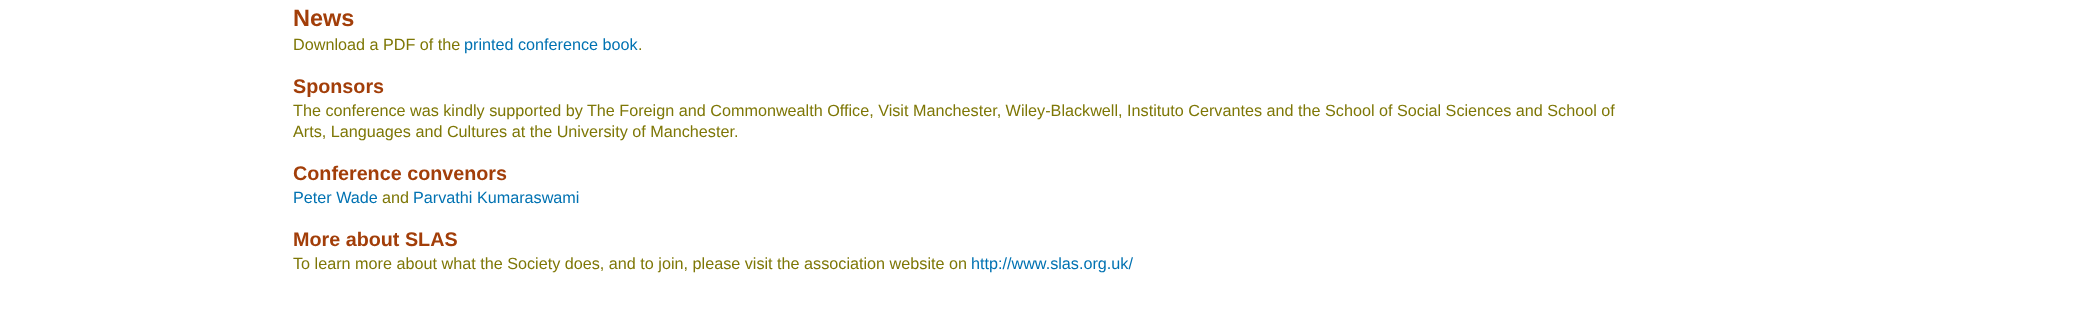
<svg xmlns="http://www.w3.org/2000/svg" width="2093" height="309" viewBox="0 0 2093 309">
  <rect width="100%" height="100%" fill="#fff"/>
  <text x="293" y="26" font-family="Liberation Sans" font-size="23.5" font-weight="bold" fill="#a23e09">News</text>
  <text x="293" y="50" font-family="Liberation Sans" font-size="16.2" fill="#7e7706">Download a PDF of the</text>
  <text x="464" y="50" font-family="Liberation Sans" font-size="16.2" fill="#0072b2">printed conference book</text>
  <text x="638" y="50" font-family="Liberation Sans" font-size="16.2" fill="#7e7706">.</text>
  <text x="293" y="93" font-family="Liberation Sans" font-size="19.75" font-weight="bold" fill="#a23e09">Sponsors</text>
  <g font-family="Liberation Sans" font-size="16.2" fill="#7e7706">
    <text x="293" y="116">The conference was kindly supported by The Foreign and Commonwealth Office, Visit Manchester, Wiley-Blackwell, Instituto Cervantes and the School of Social Sciences and School of</text>
    <text x="293" y="137">Arts, Languages and Cultures at the University of Manchester.</text>
  </g>
  <text x="293" y="180" font-family="Liberation Sans" font-size="19.75" font-weight="bold" fill="#a23e09">Conference convenors</text>
  <text x="293" y="203" font-family="Liberation Sans" font-size="16.2" fill="#0072b2">Peter Wade</text>
  <text x="382" y="203" font-family="Liberation Sans" font-size="16.2" fill="#7e7706">and</text>
  <text x="413" y="203" font-family="Liberation Sans" font-size="16.2" fill="#0072b2">Parvathi Kumaraswami</text>
  <text x="293" y="246" font-family="Liberation Sans" font-size="19.75" font-weight="bold" fill="#a23e09">More about SLAS</text>
  <text x="293" y="269" font-family="Liberation Sans" font-size="16.2" fill="#7e7706">To learn more about what the Society does, and to join, please visit the association website on</text>
  <text x="971" y="269" font-family="Liberation Sans" font-size="16.2" fill="#0072b2">http://www.slas.org.uk/</text>
</svg>
